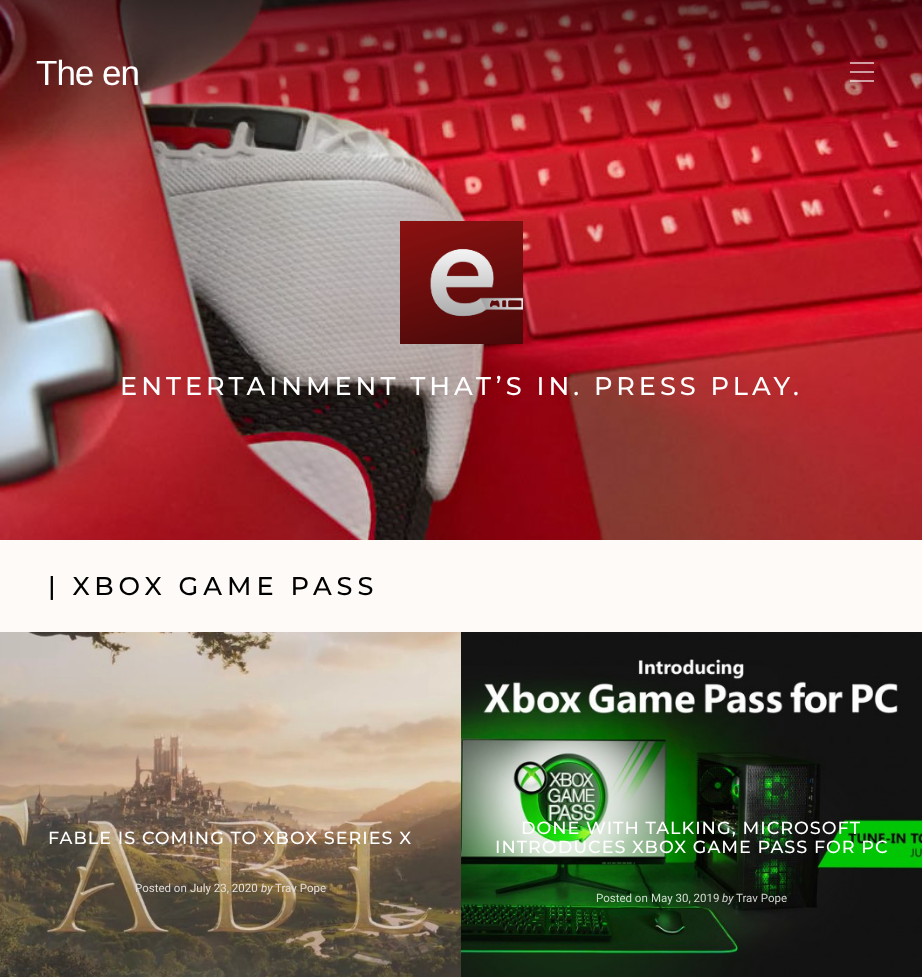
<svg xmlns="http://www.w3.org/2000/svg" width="922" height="977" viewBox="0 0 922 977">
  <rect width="100%" height="100%" fill="#fefaf7"/>
  <image x="0" y="0" width="922" height="540" href="img/1.png"/>
  <path d="M850 62h24v2H850z" fill="#ffffff99"/>
  <path d="M850 71h24v2H850z" fill="#ffffff99"/>
  <path d="M850 80h24v2H850z" fill="#ffffff99"/>
  <image x="400" y="221" width="123" height="123" href="img/2.png"/>
  <image x="0" y="632" width="461" height="345" href="img/3.png"/>
  <image x="461" y="632" width="461" height="345" href="img/4.png"/>
  <text x="36" y="85" font-family="Liberation Sans" font-size="35" letter-spacing="-1" fill="#fff">The en</text>
  <text x="120" y="395" font-family="Montserrat" font-size="25.6" font-weight="500" letter-spacing="4" fill="#fff">ENTERTAINMENT THAT’S IN. PRESS PLAY.</text>
  <text x="48" y="595" font-family="Montserrat" font-size="25.6" font-weight="500" letter-spacing="5" fill="#000">| XBOX GAME PASS</text>
  <text x="48" y="844" font-family="Montserrat" font-size="17.6" font-weight="500" letter-spacing="1" fill="#fff">FABLE IS COMING TO XBOX SERIES X</text>
  <text x="135" y="892" font-family="Roboto" font-size="11.5" fill="#dddbd9">Posted on</text>
  <text x="190" y="892" font-family="Roboto" font-size="11.5" fill="#e3dfd9">July 23, 2020</text>
  <text x="261" y="892" font-family="Roboto" font-size="11.5" font-style="italic" fill="#e3dfd9">by</text>
  <text x="275" y="892" font-family="Roboto" font-size="11.5" fill="#e3dfd9">Trav Pope</text>
  <g font-family="Montserrat" font-size="17.6" font-weight="500" letter-spacing="1" fill="#fff">
    <text x="521" y="834">DONE WITH TALKING, MICROSOFT</text>
    <text x="495" y="853">INTRODUCES XBOX GAME PASS FOR PC</text>
  </g>
  <g font-family="Roboto" font-size="11.5" fill="#d0ddd0">
    <text x="596" y="902">Posted on</text>
    <text x="651" y="902">May 30, 2019</text>
  </g>
  <text x="722" y="902" font-family="Roboto" font-size="11.5" font-style="italic" fill="#d0d2cf">by</text>
  <text x="736" y="902" font-family="Roboto" font-size="11.5" fill="#d0d2cf">Trav Pope</text>
</svg>
